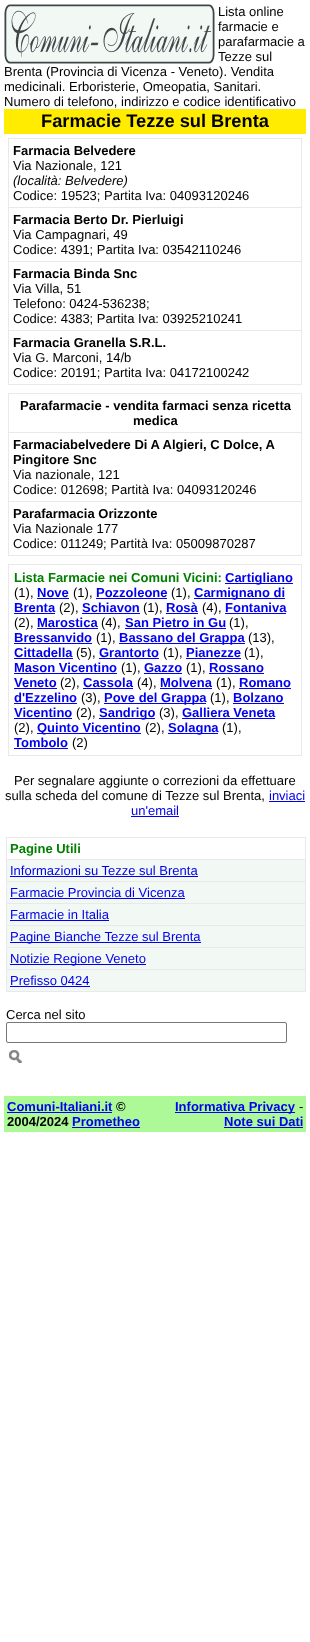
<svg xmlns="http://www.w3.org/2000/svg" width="310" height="1642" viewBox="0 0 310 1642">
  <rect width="100%" height="100%" fill="#fff"/>
  <image x="4" y="4" width="211" height="60" href="img/1.png"/>
  <path d="M4 109h302v25H4z" fill="#ffec00"/>
  <path d="M8 138h294v1H8z" fill="#e9e9e9"/>
  <path d="M301 138h1v247H301z" fill="#e9e9e9"/>
  <path d="M8 384h294v1H8z" fill="#e9e9e9"/>
  <path d="M8 138h1v247H8z" fill="#e9e9e9"/>
  <path d="M8 207h294v1H8z" fill="#e9e9e9"/>
  <path d="M8 261h294v1H8z" fill="#e9e9e9"/>
  <path d="M8 330h294v1H8z" fill="#e9e9e9"/>
  <path d="M8 393h294v1H8z" fill="#e9e9e9"/>
  <path d="M301 393h1v163H301z" fill="#e9e9e9"/>
  <path d="M8 555h294v1H8z" fill="#e9e9e9"/>
  <path d="M8 393h1v163H8z" fill="#e9e9e9"/>
  <path d="M8 432h294v1H8z" fill="#e9e9e9"/>
  <path d="M8 501h294v1H8z" fill="#e9e9e9"/>
  <path d="M8 564h294v1H8z" fill="#e9e9e9"/>
  <path d="M301 564h1v192H301z" fill="#e9e9e9"/>
  <path d="M8 755h294v1H8z" fill="#e9e9e9"/>
  <path d="M8 564h1v192H8z" fill="#e9e9e9"/>
  <path d="M225 583h68v1H225z" fill="#00e"/>
  <path d="M37 598h32v1H37z" fill="#00e"/>
  <path d="M96 598h71v1H96z" fill="#00e"/>
  <path d="M194 598h91v1H194z" fill="#00e"/>
  <path d="M14 613h41v1H14z" fill="#00e"/>
  <path d="M82 613h58v1H82z" fill="#00e"/>
  <path d="M166 613h32v1H166z" fill="#00e"/>
  <path d="M225 613h61v1H225z" fill="#00e"/>
  <path d="M37 628h61v1H37z" fill="#00e"/>
  <path d="M125 628h101v1H125z" fill="#00e"/>
  <path d="M14 643h78v1H14z" fill="#00e"/>
  <path d="M119 643h126v1H119z" fill="#00e"/>
  <path d="M14 658h59v1H14z" fill="#00e"/>
  <path d="M99 658h60v1H99z" fill="#00e"/>
  <path d="M186 658h55v1H186z" fill="#00e"/>
  <path d="M14 673h103v1H14z" fill="#00e"/>
  <path d="M144 673h38v1H144z" fill="#00e"/>
  <path d="M209 673h55v1H209z" fill="#00e"/>
  <path d="M14 688h43v1H14z" fill="#00e"/>
  <path d="M83 688h50v1H83z" fill="#00e"/>
  <path d="M160 688h52v1H160z" fill="#00e"/>
  <path d="M239 688h52v1H239z" fill="#00e"/>
  <path d="M14 703h63v1H14z" fill="#00e"/>
  <path d="M104 703h102v1H104z" fill="#00e"/>
  <path d="M233 703h51v1H233z" fill="#00e"/>
  <path d="M14 718h58v1H14z" fill="#00e"/>
  <path d="M99 718h56v1H99z" fill="#00e"/>
  <path d="M182 718h93v1H182z" fill="#00e"/>
  <path d="M37 733h104v1H37z" fill="#00e"/>
  <path d="M168 733h50v1H168z" fill="#00e"/>
  <path d="M14 748h54v1H14z" fill="#00e"/>
  <path d="M269 801h36v1H269z" fill="#00e"/>
  <path d="M131 816h48v1H131z" fill="#00e"/>
  <path d="M7 860h298v131H7z" fill="#f2f8f4"/>
  <path d="M6 837h300v1H6z" fill="#e9e9e9"/>
  <path d="M305 837h1v155H305z" fill="#e9e9e9"/>
  <path d="M6 991h300v1H6z" fill="#e9e9e9"/>
  <path d="M6 837h1v155H6z" fill="#e9e9e9"/>
  <path d="M6 859h300v1H6z" fill="#e9e9e9"/>
  <path d="M10 876h188v1H10z" fill="#00e"/>
  <path d="M6 881h300v1H6z" fill="#e9e9e9"/>
  <path d="M10 898h175v1H10z" fill="#00e"/>
  <path d="M6 903h300v1H6z" fill="#e9e9e9"/>
  <path d="M10 920h99v1H10z" fill="#00e"/>
  <path d="M6 925h300v1H6z" fill="#e9e9e9"/>
  <path d="M10 942h191v1H10z" fill="#00e"/>
  <path d="M6 947h300v1H6z" fill="#e9e9e9"/>
  <path d="M10 964h136v1H10z" fill="#00e"/>
  <path d="M6 969h300v1H6z" fill="#e9e9e9"/>
  <path d="M10 986h80v1H10z" fill="#00e"/>
  <rect x="6.5" y="1022.5" width="280" height="20" rx="1.5" fill="none" stroke="#767676"/>
  <image x="9" y="1050" width="13" height="13" href="img/2.png"/>
  <path d="M4 1096h302v36H4z" fill="#adf997"/>
  <path d="M7 1112h105v1H7z" fill="#00e"/>
  <path d="M72 1127h68v1H72z" fill="#00e"/>
  <path d="M175 1112h120v1H175z" fill="#00e"/>
  <path d="M224 1127h79v1H224z" fill="#00e"/>
  <g font-family="Liberation Sans" font-size="13" fill="#000">
    <text x="218" y="16">Lista online</text>
    <text x="218" y="31">farmacie e</text>
    <text x="218" y="46">parafarmacie a</text>
    <text x="218" y="61">Tezze sul</text>
    <text x="4" y="76">Brenta (Provincia di Vicenza - Veneto). Vendita</text>
    <text x="4" y="91">medicinali. Erboristerie, Omeopatia, Sanitari.</text>
    <text x="4" y="106">Numero di telefono, indirizzo e codice identificativo</text>
  </g>
  <text x="41" y="127" font-family="Liberation Sans" font-size="18.25" font-weight="bold" fill="#000">Farmacie Tezze sul Brenta</text>
  <text x="13" y="155" font-family="Liberation Sans" font-size="13" font-weight="bold" fill="#000">Farmacia Belvedere</text>
  <text x="13" y="170" font-family="Liberation Sans" font-size="13" fill="#000">Via Nazionale, 121</text>
  <text x="13" y="185" font-family="Liberation Sans" font-size="13" font-style="italic" fill="#000">(località: Belvedere)</text>
  <text x="13" y="200" font-family="Liberation Sans" font-size="13" fill="#000">Codice: 19523; Partita Iva: 04093120246</text>
  <text x="13" y="224" font-family="Liberation Sans" font-size="13" font-weight="bold" fill="#000">Farmacia Berto Dr. Pierluigi</text>
  <g font-family="Liberation Sans" font-size="13" fill="#000">
    <text x="13" y="239">Via Campagnari, 49</text>
    <text x="13" y="254">Codice: 4391; Partita Iva: 03542110246</text>
  </g>
  <text x="13" y="278" font-family="Liberation Sans" font-size="13" font-weight="bold" fill="#000">Farmacia Binda Snc</text>
  <g font-family="Liberation Sans" font-size="13" fill="#000">
    <text x="13" y="293">Via Villa, 51</text>
    <text x="13" y="308">Telefono: 0424-536238;</text>
    <text x="13" y="323">Codice: 4383; Partita Iva: 03925210241</text>
  </g>
  <text x="13" y="347" font-family="Liberation Sans" font-size="13" font-weight="bold" fill="#000">Farmacia Granella S.R.L.</text>
  <g font-family="Liberation Sans" font-size="13" fill="#000">
    <text x="13" y="362">Via G. Marconi, 14/b</text>
    <text x="13" y="377">Codice: 20191; Partita Iva: 04172100242</text>
  </g>
  <g font-family="Liberation Sans" font-size="13" font-weight="bold" fill="#000">
    <text x="20" y="410">Parafarmacie - vendita farmaci senza ricetta</text>
    <text x="133" y="425">medica</text>
    <text x="13" y="449">Farmaciabelvedere Di A Algieri, C Dolce, A</text>
    <text x="13" y="464">Pingitore Snc</text>
  </g>
  <g font-family="Liberation Sans" font-size="13" fill="#000">
    <text x="13" y="479">Via nazionale, 121</text>
    <text x="13" y="494">Codice: 012698; Partità Iva: 04093120246</text>
  </g>
  <text x="13" y="518" font-family="Liberation Sans" font-size="13" font-weight="bold" fill="#000">Parafarmacia Orizzonte</text>
  <g font-family="Liberation Sans" font-size="13" fill="#000">
    <text x="13" y="533">Via Nazionale 177</text>
    <text x="13" y="548">Codice: 011249; Partità Iva: 05009870287</text>
  </g>
  <text x="14" y="582" font-family="Liberation Sans" font-size="13" font-weight="bold" fill="#008000">Lista Farmacie nei Comuni Vicini:</text>
  <text x="225" y="582" font-family="Liberation Sans" font-size="13" font-weight="bold" fill="#00e">Cartigliano</text>
  <text x="14" y="597" font-family="Liberation Sans" font-size="13" fill="#000">(1),</text>
  <text x="37" y="597" font-family="Liberation Sans" font-size="13" font-weight="bold" fill="#00e">Nove</text>
  <text x="73" y="597" font-family="Liberation Sans" font-size="13" fill="#000">(1),</text>
  <text x="96" y="597" font-family="Liberation Sans" font-size="13" font-weight="bold" fill="#00e">Pozzoleone</text>
  <text x="171" y="597" font-family="Liberation Sans" font-size="13" fill="#000">(1),</text>
  <g font-family="Liberation Sans" font-size="13" font-weight="bold" fill="#00e">
    <text x="194" y="597">Carmignano di</text>
    <text x="14" y="612">Brenta</text>
  </g>
  <text x="59" y="612" font-family="Liberation Sans" font-size="13" fill="#000">(2),</text>
  <text x="82" y="612" font-family="Liberation Sans" font-size="13" font-weight="bold" fill="#00e">Schiavon</text>
  <text x="143" y="612" font-family="Liberation Sans" font-size="13" fill="#000">(1),</text>
  <text x="166" y="612" font-family="Liberation Sans" font-size="13" font-weight="bold" fill="#00e">Rosà</text>
  <text x="202" y="612" font-family="Liberation Sans" font-size="13" fill="#000">(4),</text>
  <text x="225" y="612" font-family="Liberation Sans" font-size="13" font-weight="bold" fill="#00e">Fontaniva</text>
  <text x="14" y="627" font-family="Liberation Sans" font-size="13" fill="#000">(2),</text>
  <text x="37" y="627" font-family="Liberation Sans" font-size="13" font-weight="bold" fill="#00e">Marostica</text>
  <text x="101" y="627" font-family="Liberation Sans" font-size="13" fill="#000">(4),</text>
  <text x="125" y="627" font-family="Liberation Sans" font-size="13" font-weight="bold" fill="#00e">San Pietro in Gu</text>
  <text x="229" y="627" font-family="Liberation Sans" font-size="13" fill="#000">(1),</text>
  <text x="14" y="642" font-family="Liberation Sans" font-size="13" font-weight="bold" fill="#00e">Bressanvido</text>
  <text x="96" y="642" font-family="Liberation Sans" font-size="13" fill="#000">(1),</text>
  <text x="119" y="642" font-family="Liberation Sans" font-size="13" font-weight="bold" fill="#00e">Bassano del Grappa</text>
  <text x="248" y="642" font-family="Liberation Sans" font-size="13" fill="#000">(13),</text>
  <text x="14" y="657" font-family="Liberation Sans" font-size="13" font-weight="bold" fill="#00e">Cittadella</text>
  <text x="76" y="657" font-family="Liberation Sans" font-size="13" fill="#000">(5),</text>
  <text x="99" y="657" font-family="Liberation Sans" font-size="13" font-weight="bold" fill="#00e">Grantorto</text>
  <text x="163" y="657" font-family="Liberation Sans" font-size="13" fill="#000">(1),</text>
  <text x="186" y="657" font-family="Liberation Sans" font-size="13" font-weight="bold" fill="#00e">Pianezze</text>
  <text x="244" y="657" font-family="Liberation Sans" font-size="13" fill="#000">(1),</text>
  <text x="14" y="672" font-family="Liberation Sans" font-size="13" font-weight="bold" fill="#00e">Mason Vicentino</text>
  <text x="121" y="672" font-family="Liberation Sans" font-size="13" fill="#000">(1),</text>
  <text x="144" y="672" font-family="Liberation Sans" font-size="13" font-weight="bold" fill="#00e">Gazzo</text>
  <text x="186" y="672" font-family="Liberation Sans" font-size="13" fill="#000">(1),</text>
  <g font-family="Liberation Sans" font-size="13" font-weight="bold" fill="#00e">
    <text x="209" y="672">Rossano</text>
    <text x="14" y="687">Veneto</text>
  </g>
  <text x="60" y="687" font-family="Liberation Sans" font-size="13" fill="#000">(2),</text>
  <text x="83" y="687" font-family="Liberation Sans" font-size="13" font-weight="bold" fill="#00e">Cassola</text>
  <text x="137" y="687" font-family="Liberation Sans" font-size="13" fill="#000">(4),</text>
  <text x="160" y="687" font-family="Liberation Sans" font-size="13" font-weight="bold" fill="#00e">Molvena</text>
  <text x="216" y="687" font-family="Liberation Sans" font-size="13" fill="#000">(1),</text>
  <g font-family="Liberation Sans" font-size="13" font-weight="bold" fill="#00e">
    <text x="239" y="687">Romano</text>
    <text x="14" y="702">d'Ezzelino</text>
  </g>
  <text x="81" y="702" font-family="Liberation Sans" font-size="13" fill="#000">(3),</text>
  <text x="104" y="702" font-family="Liberation Sans" font-size="13" font-weight="bold" fill="#00e">Pove del Grappa</text>
  <text x="210" y="702" font-family="Liberation Sans" font-size="13" fill="#000">(1),</text>
  <g font-family="Liberation Sans" font-size="13" font-weight="bold" fill="#00e">
    <text x="233" y="702">Bolzano</text>
    <text x="14" y="717">Vicentino</text>
  </g>
  <text x="76" y="717" font-family="Liberation Sans" font-size="13" fill="#000">(2),</text>
  <text x="99" y="717" font-family="Liberation Sans" font-size="13" font-weight="bold" fill="#00e">Sandrigo</text>
  <text x="159" y="717" font-family="Liberation Sans" font-size="13" fill="#000">(3),</text>
  <text x="182" y="717" font-family="Liberation Sans" font-size="13" font-weight="bold" fill="#00e">Galliera Veneta</text>
  <text x="14" y="732" font-family="Liberation Sans" font-size="13" fill="#000">(2),</text>
  <text x="37" y="732" font-family="Liberation Sans" font-size="13" font-weight="bold" fill="#00e">Quinto Vicentino</text>
  <text x="145" y="732" font-family="Liberation Sans" font-size="13" fill="#000">(2),</text>
  <text x="168" y="732" font-family="Liberation Sans" font-size="13" font-weight="bold" fill="#00e">Solagna</text>
  <text x="222" y="732" font-family="Liberation Sans" font-size="13" fill="#000">(1),</text>
  <text x="14" y="747" font-family="Liberation Sans" font-size="13" font-weight="bold" fill="#00e">Tombolo</text>
  <g font-family="Liberation Sans" font-size="13" fill="#000">
    <text x="72" y="747">(2)</text>
    <text x="14" y="785">Per segnalare aggiunte o correzioni da effettuare</text>
    <text x="5" y="800">sulla scheda del comune di Tezze sul Brenta,</text>
  </g>
  <g font-family="Liberation Sans" font-size="13" fill="#00e">
    <text x="269" y="800">inviaci</text>
    <text x="131" y="815">un'email</text>
  </g>
  <text x="10" y="853" font-family="Liberation Sans" font-size="13" font-weight="bold" fill="#008000">Pagine Utili</text>
  <g font-family="Liberation Sans" font-size="13" fill="#00e">
    <text x="10" y="875">Informazioni su Tezze sul Brenta</text>
    <text x="10" y="897">Farmacie Provincia di Vicenza</text>
    <text x="10" y="919">Farmacie in Italia</text>
    <text x="10" y="941">Pagine Bianche Tezze sul Brenta</text>
    <text x="10" y="963">Notizie Regione Veneto</text>
    <text x="10" y="985">Prefisso 0424</text>
  </g>
  <text x="6" y="1019" font-family="Liberation Sans" font-size="13" fill="#000">Cerca nel sito</text>
  <text x="7" y="1111" font-family="Liberation Sans" font-size="13" font-weight="bold" fill="#00e">Comuni-Italiani.it</text>
  <g font-family="Liberation Sans" font-size="13" font-weight="bold" fill="#000">
    <text x="116" y="1111">©</text>
    <text x="7" y="1126">2004/2024</text>
  </g>
  <g font-family="Liberation Sans" font-size="13" font-weight="bold" fill="#00e">
    <text x="72" y="1126">Prometheo</text>
    <text x="175" y="1111">Informativa Privacy</text>
  </g>
  <text x="299" y="1111" font-family="Liberation Sans" font-size="13" fill="#000">-</text>
  <text x="224" y="1126" font-family="Liberation Sans" font-size="13" font-weight="bold" fill="#00e">Note sui Dati</text>
</svg>
